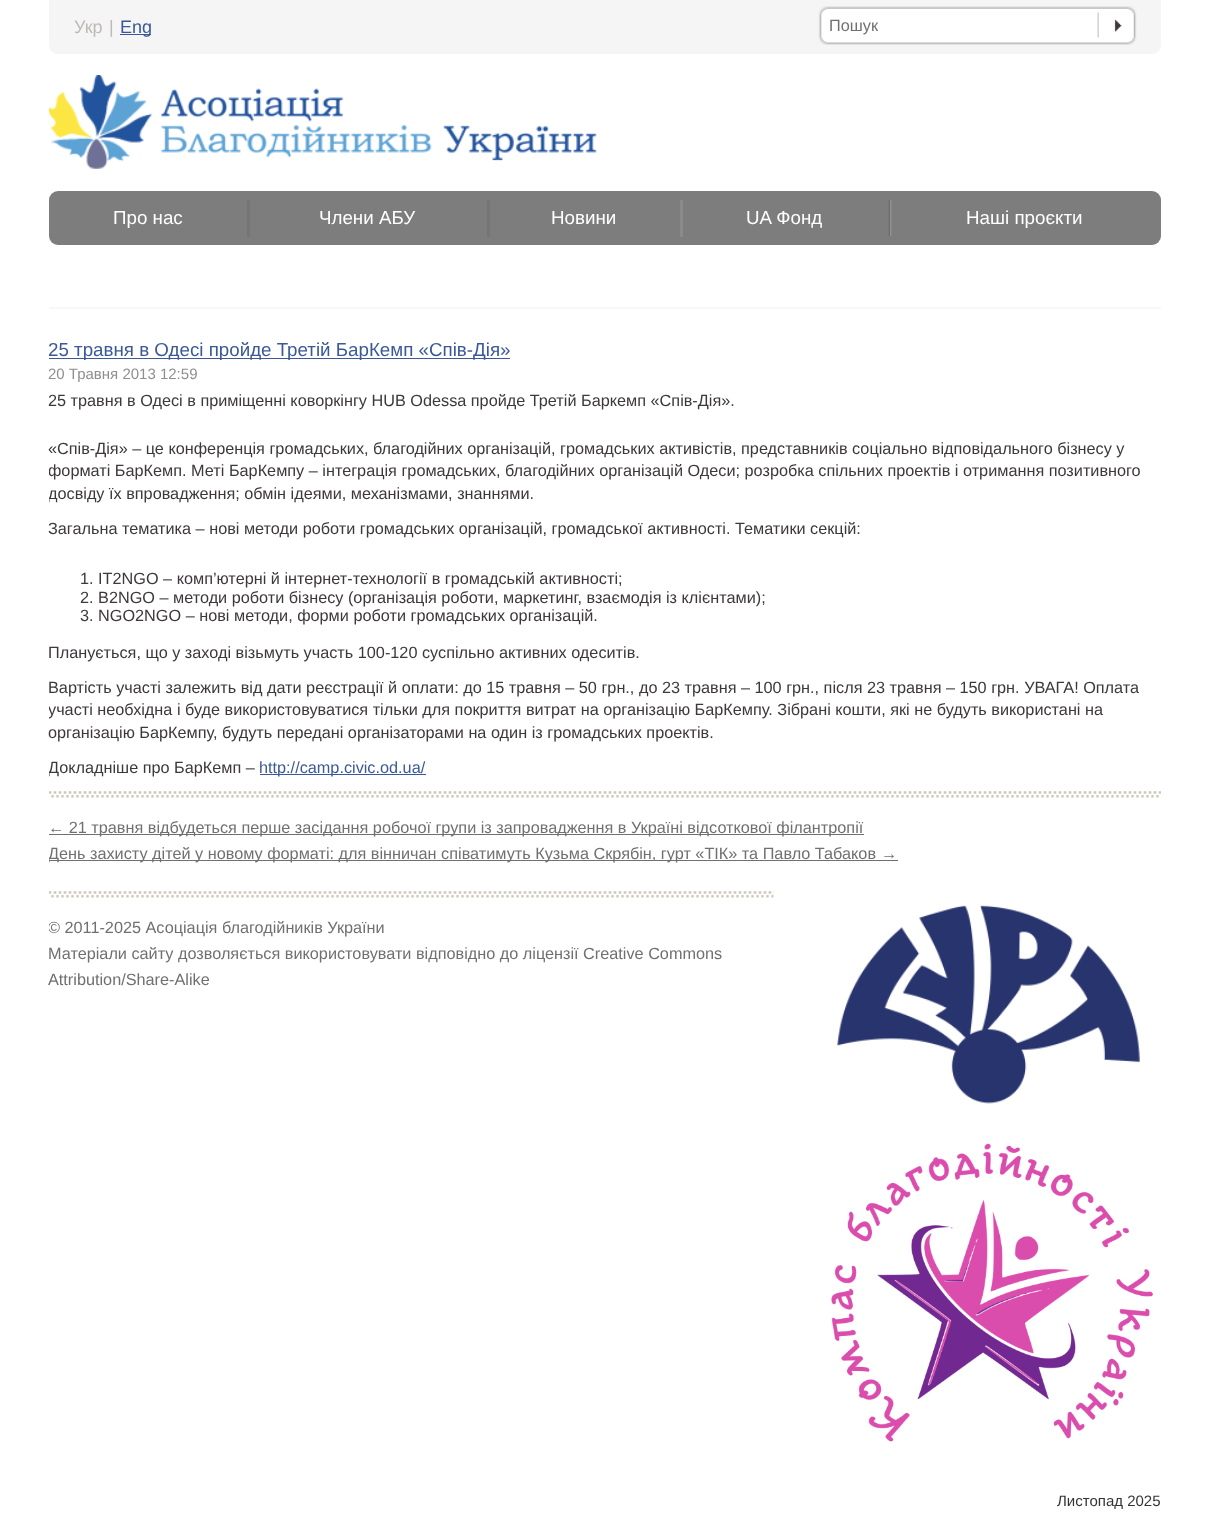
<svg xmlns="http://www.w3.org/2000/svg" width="1208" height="1513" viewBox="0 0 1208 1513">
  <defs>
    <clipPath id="clip1"><path d="M49 339h1112v452H49z"/></clipPath>
    <clipPath id="clip2"><path d="M49 791h1112v100H49z"/></clipPath>
    <clipPath id="clip3"><path d="M49 891h725v127H49z"/></clipPath>
  </defs>
  <rect width="100%" height="100%" fill="#fff"/>
  <path d="M49 0H1161V45C1161 50 1157 54 1152 54H58C53 54 49 50 49 45Z" fill="#f5f5f5"/>
  <path d="M120 34h31v1H120z" fill="#3b5998"/>
  <image x="818" y="6" width="319" height="39" href="img/1.png"/>
  <image x="48" y="75" width="549" height="94" href="img/2.png"/>
  <rect x="49" y="191" width="1112" height="54" rx="9" fill="#7d7d7d"/>
  <path d="M247 200h3v37H247z" fill="#767475"/>
  <path d="M487 200h3v37H487z" fill="#767475"/>
  <path d="M680 200h3v37H680z" fill="#8b8a8a"/>
  <image x="888" y="200" width="4" height="37" href="img/3.png"/>
  <image x="49" y="307" width="1112" height="2" href="img/4.png"/>
  <path d="M49 358h461v1H49z" fill="#3b5998"/>
  <path d="M260 774h166v1H260z" fill="#3b5998"/>
  <image x="49" y="791" width="1112" height="7" href="img/5.png"/>
  <path d="M49 834h815v1H49z" fill="#707070"/>
  <path d="M49 860h849v1H49z" fill="#707070"/>
  <image x="49" y="891" width="725" height="7" href="img/6.png"/>
  <image x="837" y="905" width="303" height="199" href="img/7.png"/>
  <image x="831" y="1143" width="322" height="299" href="img/8.png"/>
  <g font-family="Liberation Sans" font-size="18" fill="#bdbab8">
    <text x="74" y="33">Укр</text>
    <text x="109" y="33">|</text>
  </g>
  <text x="120" y="33" font-family="Liberation Sans" font-size="18" fill="#3b5998">Eng</text>
  <text x="829" y="31" font-family="Liberation Sans" font-size="16.25" fill="#707070">Пошук</text>
  <g font-family="Liberation Sans" font-size="18.75" fill="#fff">
    <text x="113" y="224">Про нас</text>
    <text x="319" y="224">Члени АБУ</text>
    <text x="551" y="224">Новини</text>
    <text x="746" y="224">UA Фонд</text>
    <text x="966" y="224">Наші проєкти</text>
  </g>
  <text x="48" y="356" font-family="Liberation Sans" font-size="18.75" fill="#3b5998">25 травня в Одесі пройде Третій БарКемп «Спів-Дія»</text>
  <text x="48" y="379" font-family="Liberation Sans" font-size="15" fill="#8f8f8f">20 Травня 2013 12:59</text>
  <g font-family="Liberation Sans" font-size="16.25" fill="#3e373c">
    <text x="48" y="406">25 травня в Одесі в приміщенні коворкінгу HUB Odessa пройде Третій Баркемп «Спів-Дія».</text>
    <text x="48" y="454">«Спів-Дія» – це конференція громадських, благодійних організацій, громадських активістів, представників соціально відповідального бізнесу у</text>
  </g>
  <g clip-path="url(#clip1)">
    <g font-family="Liberation Sans" font-size="16.25" fill="#3e373c">
      <text x="48" y="476">форматі БарКемп. Меті БарКемпу – інтеграція громадських, благодійних організацій Одеси; розробка спільних проектів і отримання позитивного</text>
      <text x="48" y="499">досвіду їх впровадження; обмін ідеями, механізмами, знаннями.</text>
    </g>
  </g>
  <g font-family="Liberation Sans" font-size="16.25" fill="#3e373c">
    <text x="48" y="534">Загальна тематика – нові методи роботи громадських організацій, громадської активності. Тематики секцій:</text>
    <text x="80" y="584">1. IT2NGO – комп’ютерні й інтернет-технології в громадській активності;</text>
    <text x="80" y="603">2. B2NGO – методи роботи бізнесу (організація роботи, маркетинг, взаємодія із клієнтами);</text>
    <text x="80" y="621">3. NGO2NGO – нові методи, форми роботи громадських організацій.</text>
    <text x="48" y="658">Планується, що у заході візьмуть участь 100-120 суспільно активних одеситів.</text>
    <text x="48" y="693">Вартість участі залежить від дати реєстрації й оплати: до 15 травня – 50 грн., до 23 травня – 100 грн., після 23 травня – 150 грн. УВАГА! Оплата</text>
  </g>
  <g clip-path="url(#clip1)">
    <text x="48" y="715" font-family="Liberation Sans" font-size="16.25" fill="#3e373c">участі необхідна і буде використовуватися тільки для покриття витрат на організацію БарКемпу. Зібрані кошти, які не будуть використані на</text>
  </g>
  <text x="48" y="738" font-family="Liberation Sans" font-size="16.25" fill="#3e373c">організацію БарКемпу, будуть передані організаторами на один із громадських проектів.</text>
  <g clip-path="url(#clip1)">
    <text x="48" y="773" font-family="Liberation Sans" font-size="16.25" fill="#3e373c">Докладніше про БарКемп –</text>
  </g>
  <text x="259" y="773" font-family="Liberation Sans" font-size="16.25" fill="#3b5998">http://camp.civic.od.ua/</text>
  <text x="48" y="833" font-family="Liberation Sans" font-size="16.25" fill="#707070">← 21 травня відбудеться перше засідання робочої групи із запровадження в Україні відсоткової філантропії</text>
  <g clip-path="url(#clip2)">
    <text x="48" y="859" font-family="Liberation Sans" font-size="16.25" fill="#707070">День захисту дітей у новому форматі: для вінничан співатимуть Кузьма Скрябін, гурт «ТІК» та Павло Табаков</text>
  </g>
  <text x="881" y="859" font-family="Liberation Sans" font-size="16.25" fill="#707070">→</text>
  <g clip-path="url(#clip3)">
    <text x="48" y="933" font-family="Liberation Sans" font-size="16.25" fill="#707070">© 2011-2025 Асоціація благодійників України</text>
  </g>
  <g font-family="Liberation Sans" font-size="16.25" fill="#707070">
    <text x="48" y="959">Матеріали сайту дозволяється використовувати відповідно до ліцензії Creative Commons</text>
    <text x="48" y="985">Attribution/Share-Alike</text>
  </g>
  <text x="1057" y="1506" font-family="Liberation Sans" font-size="15" fill="#333">Листопад 2025</text>
</svg>
